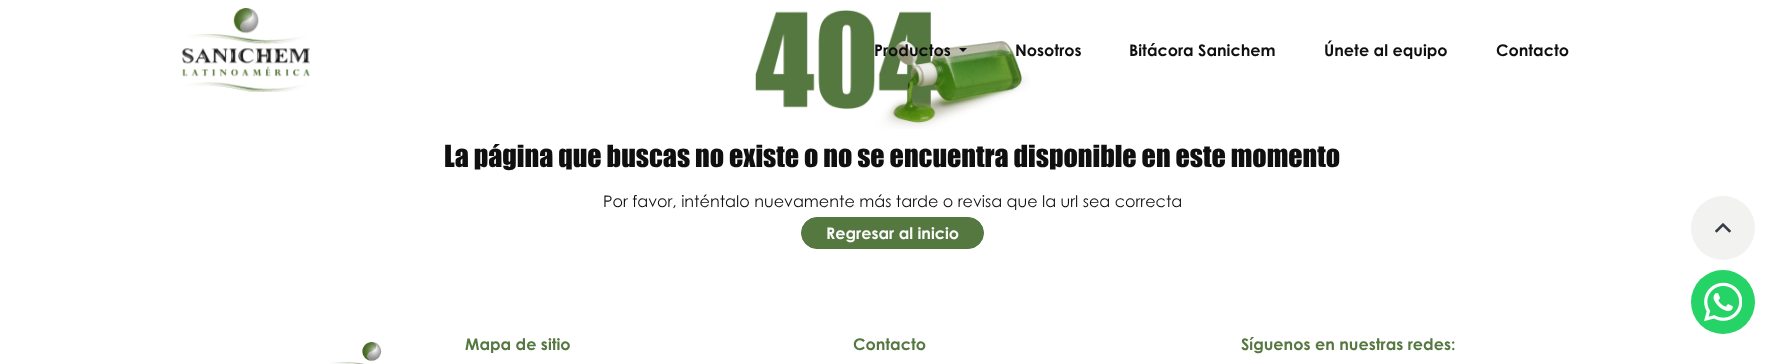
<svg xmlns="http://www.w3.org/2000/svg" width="1785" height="364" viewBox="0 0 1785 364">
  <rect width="100%" height="100%" fill="#fff"/>
  <image x="181" y="8" width="129" height="84" href="img/1.png"/>
  <image x="755" y="10" width="275" height="119" href="img/2.png"/>
  <path d="M959 48H967L963 52Z" fill="#0f0f0f"/>
  <rect x="801.5" y="217.5" width="182" height="31" rx="15.5" fill="#557740" stroke="#557740"/>
  <circle cx="1723" cy="228" r="32" fill="#f2f2f0"/>
  <image x="1715" y="223" width="16" height="10" href="img/3.png"/>
  <circle cx="1723" cy="302" r="32" fill="#25d366"/>
  <image x="1704" y="282" width="38" height="40" href="img/4.png"/>
  <image x="329" y="342" width="53" height="22" href="img/5.png"/>
  <g font-family="Century Gothic" font-size="16" font-weight="bold" fill="#0f0f0f">
    <text x="874" y="56">Productos</text>
    <text x="1015" y="56">Nosotros</text>
    <text x="1129" y="56">Bitácora Sanichem</text>
    <text x="1324" y="56">Únete al equipo</text>
    <text x="1496" y="56">Contacto</text>
  </g>
  <text x="444" y="167" font-family="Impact" font-size="28" fill="#0f0f0f">La página que buscas no existe o no se encuentra disponible en este momento</text>
  <text x="603" y="207" font-family="Century Gothic" font-size="16" fill="#0f0f0f">Por favor, inténtalo nuevamente más tarde o revisa que la url sea correcta</text>
  <text x="826" y="239" font-family="Century Gothic" font-size="16" font-weight="bold" fill="#fafafa">Regresar al inicio</text>
  <g font-family="Century Gothic" font-size="16" font-weight="bold" fill="#557740">
    <text x="465" y="350">Mapa de sitio</text>
    <text x="853" y="350">Contacto</text>
    <text x="1241" y="350">Síguenos en nuestras redes:</text>
  </g>
</svg>
